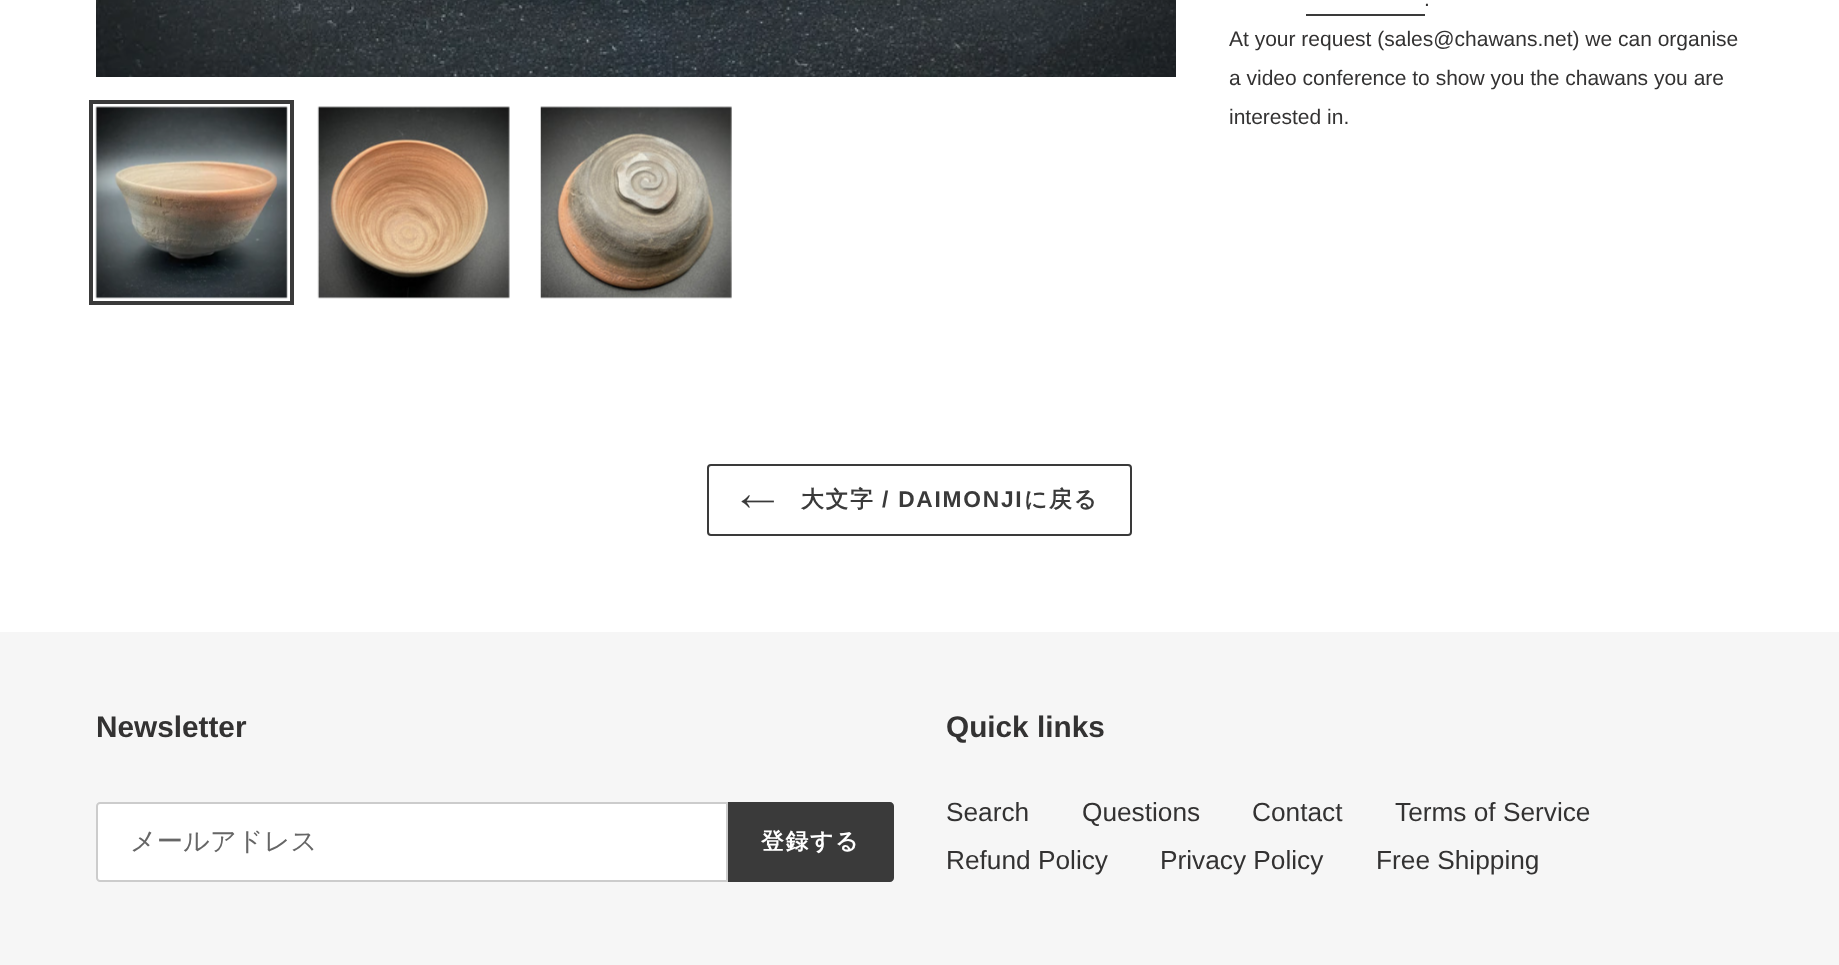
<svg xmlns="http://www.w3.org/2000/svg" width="1839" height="965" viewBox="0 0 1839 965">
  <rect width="100%" height="100%" fill="#fff"/>
  <image x="96" y="0" width="1080" height="77" href="img/1.png"/>
  <path d="M91 102h201v201H91z" fill="none" stroke="#3a3a3a" stroke-width="4"/>
  <image x="95" y="106" width="193" height="193" href="img/2.png"/>
  <image x="317" y="106" width="193" height="193" href="img/3.png"/>
  <image x="540" y="106" width="192" height="193" href="img/4.png"/>
  <path d="M1306 14h119v2H1306z" fill="#3a3a3a"/>
  <rect x="708" y="465" width="423" height="70" rx="3" fill="none" stroke="#3a3a3a" stroke-width="2"/>
  <image x="741" y="495" width="33" height="13" href="img/5.png"/>
  <path d="M0 632h1839v333H0z" fill="#f6f6f6"/>
  <path d="M100 803H727V881H100C98.5 881 97 879.5 97 878V806C97 804.5 98.5 803 100 803Z" fill="#fff" stroke="#ccc" stroke-width="2"/>
  <path d="M728 802H890C892 802 894 804 894 806V878C894 880 892 882 890 882H728Z" fill="#3a3a3a"/>
  <g font-family="Liberation Sans" font-size="21" fill="#333232">
    <text x="1424" y="6">.</text>
    <text x="1229" y="46">At your request (sales@chawans.net) we can organise</text>
    <text x="1229" y="85">a video conference to show you the chawans you are</text>
    <text x="1229" y="124">interested in.</text>
  </g>
  <text x="801" y="507" font-family="WenQuanYi Zen Hei" font-size="22.75" font-weight="bold" letter-spacing="1.75" fill="#3a3a3a">大文字</text>
  <text x="882" y="507" font-family="Liberation Sans" font-size="22.75" font-weight="bold" letter-spacing="1.75" fill="#3a3a3a">/ DAIMONJI</text>
  <text x="1024" y="507" font-family="WenQuanYi Zen Hei" font-size="22.75" font-weight="bold" letter-spacing="1.75" fill="#3a3a3a">に戻る</text>
  <text x="96" y="737" font-family="Liberation Sans" font-size="29.75" font-weight="bold" fill="#333232">Newsletter</text>
  <text x="130" y="850" font-family="WenQuanYi Zen Hei" font-size="26.25" font-weight="500" fill="#666">メールアドレス</text>
  <text x="761" y="849" font-family="WenQuanYi Zen Hei" font-size="22.75" font-weight="bold" letter-spacing="1.75" fill="#fff">登録する</text>
  <text x="946" y="737" font-family="Liberation Sans" font-size="29.75" font-weight="bold" fill="#333232">Quick links</text>
  <g font-family="Liberation Sans" font-size="26.25" fill="#333232">
    <text x="946" y="821">Search</text>
    <text x="1082" y="821">Questions</text>
    <text x="1252" y="821">Contact</text>
    <text x="1395" y="821">Terms of Service</text>
    <text x="946" y="869">Refund Policy</text>
    <text x="1160" y="869">Privacy Policy</text>
    <text x="1376" y="869">Free Shipping</text>
  </g>
</svg>
